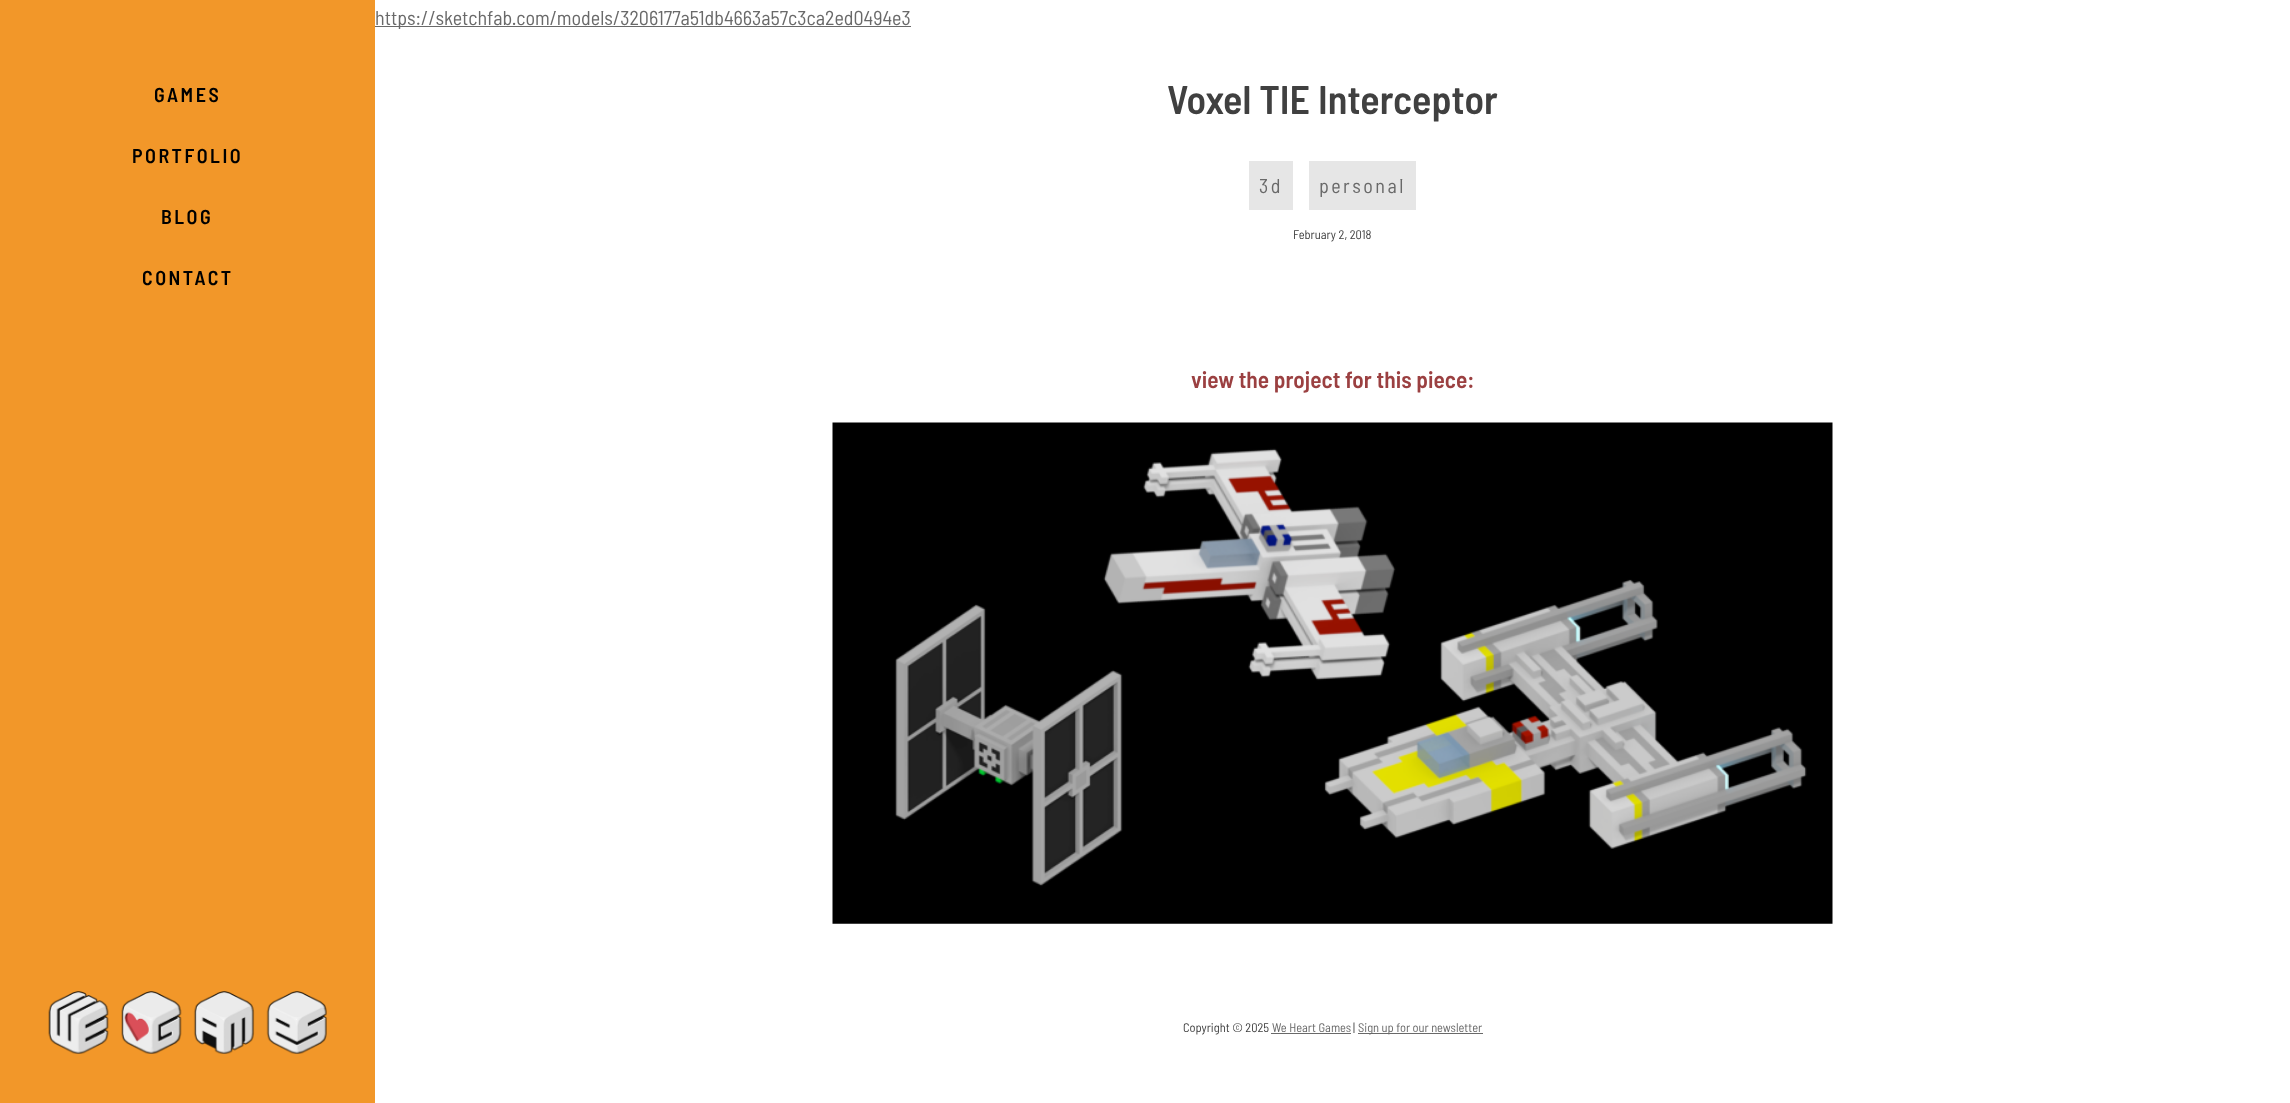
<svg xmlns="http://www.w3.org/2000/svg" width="2290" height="1103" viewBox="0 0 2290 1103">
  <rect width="100%" height="100%" fill="#fff"/>
  <path d="M0 0h375v1103H0z" fill="#f29729"/>
  <image x="48" y="991" width="279" height="63" href="img/1.png"/>
  <path d="M375 26h536v1H375z" fill="#696969"/>
  <path d="M1249 161h44v49H1249z" fill="#e6e6e6"/>
  <path d="M1309 161h107v49H1309z" fill="#e6e6e6"/>
  <image x="832" y="422" width="1001" height="502" href="img/2.png"/>
  <path d="M1271 1033h80v1H1271z" fill="#696969"/>
  <path d="M1358 1033h125v1H1358z" fill="#696969"/>
  <g font-family="Barlow Semi Condensed" font-size="20" font-weight="600" letter-spacing="2.5" fill="#000">
    <text x="154" y="102">GAMES</text>
    <text x="132" y="163">PORTFOLIO</text>
    <text x="161" y="224">BLOG</text>
    <text x="142" y="285">CONTACT</text>
  </g>
  <text x="375" y="25" font-family="Barlow Semi Condensed" font-size="20" fill="#696969">https://sketchfab.com/models/3206177a51db4663a57c3ca2ed0494e3</text>
  <text x="1167" y="114" font-family="Barlow Semi Condensed" font-size="40" font-weight="600" fill="#404040">Voxel TIE Interceptor</text>
  <g font-family="Barlow Semi Condensed" font-size="20" letter-spacing="2.5" fill="#696969">
    <text x="1259" y="193">3d</text>
    <text x="1319" y="193">personal</text>
  </g>
  <text x="1293" y="239" font-family="Barlow Semi Condensed" font-size="12.5" fill="#404040">February 2, 2018</text>
  <text x="1191" y="388" font-family="Barlow Semi Condensed" font-size="23.4" font-weight="600" fill="#9b4041">view the project for this piece:</text>
  <text x="1183" y="1032" font-family="Barlow Semi Condensed" font-size="12.5" fill="#404040">Copyright © 2025</text>
  <text x="1272" y="1032" font-family="Barlow Semi Condensed" font-size="12.5" fill="#696969">We Heart Games</text>
  <text x="1353" y="1032" font-family="Barlow Semi Condensed" font-size="12.5" fill="#404040">|</text>
  <text x="1358" y="1032" font-family="Barlow Semi Condensed" font-size="12.5" fill="#696969">Sign up for our newsletter</text>
</svg>
